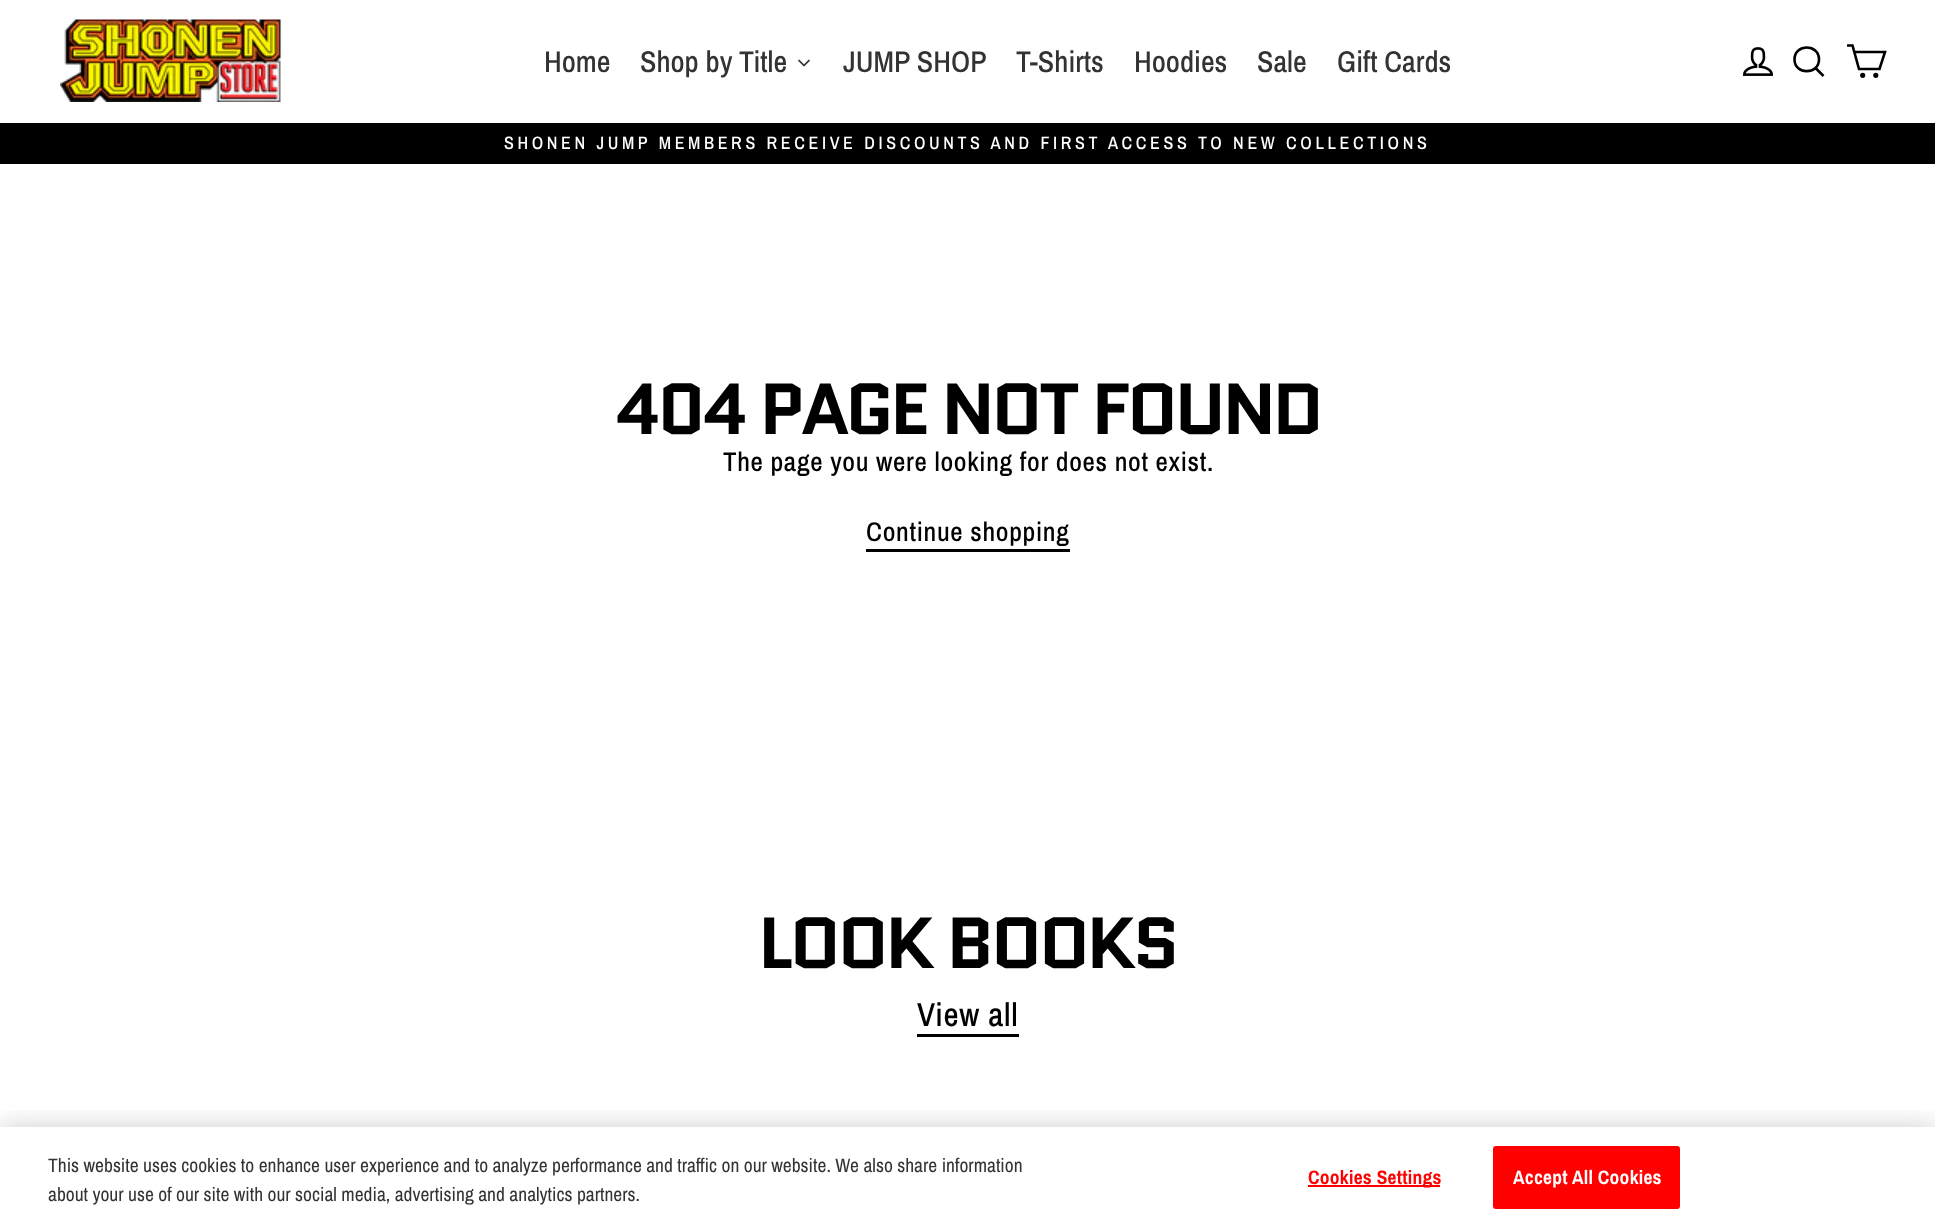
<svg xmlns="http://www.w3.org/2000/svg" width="1935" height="1232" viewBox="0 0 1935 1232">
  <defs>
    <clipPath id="clip1"><path d="M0 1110h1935v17H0z"/></clipPath>
  </defs>
  <rect width="100%" height="100%" fill="#fff"/>
  <image x="60" y="19" width="222" height="83" href="img/1.png"/>
  <image x="798" y="59" width="12" height="8" href="img/2.png"/>
  <image x="1742" y="47" width="32" height="29" href="img/3.png"/>
  <path d="M1819 59.5C1819 75 1794.5 75 1794.5 59.5C1794.5 43.5 1819 43.5 1819 59.5ZM1823.5 76L1815.5 68" fill="none" stroke="#000" stroke-width="2.6"/>
  <path d="M1854 52H1885L1879.5 69H1859L1852.5 45.5H1847" fill="none" stroke="#000" stroke-width="2.6"/>
  <circle cx="1862.7" cy="75.3" r="1.3" fill="none" stroke="#000" stroke-width="2.6"/>
  <circle cx="1875.8" cy="75.3" r="1.3" fill="none" stroke="#000" stroke-width="2.6"/>
  <path d="M0 123h1935v41H0z" fill="#000"/>
  <path d="M866 549h204v3H866z" fill="#000"/>
  <path d="M917 1034h102v3H917z" fill="#000"/>
  <g clip-path="url(#clip1)">
    <path d="M0 1127h1935v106H0z" fill="#00000033" filter="blur(13.5px)"/>
  </g>
  <path d="M1308 1185h132v2H1308z" fill="#f00"/>
  <rect x="1494" y="1147" width="185" height="61" rx="2" fill="#f00" stroke="#f00" stroke-width="2"/>
  <g font-family="Archivo Narrow" font-size="30" font-weight="500" fill="#333">
    <text x="544" y="72">Home</text>
    <text x="640" y="72">Shop by Title</text>
    <text x="843" y="72">JUMP SHOP</text>
    <text x="1016" y="72">T-Shirts</text>
    <text x="1134" y="72">Hoodies</text>
    <text x="1257" y="72">Sale</text>
    <text x="1337" y="72">Gift Cards</text>
  </g>
  <text x="504" y="149" font-family="Archivo Narrow" font-size="18" font-weight="500" letter-spacing="3.6" fill="#fff">SHONEN JUMP MEMBERS RECEIVE DISCOUNTS AND FIRST ACCESS TO NEW COLLECTIONS</text>
  <text x="615" y="434" font-family="Quantico" font-size="72" font-weight="bold" letter-spacing="-3.6" fill="#000">404 PAGE NOT FOUND</text>
  <g font-family="Archivo Narrow" font-size="27" font-weight="500" letter-spacing="0.7" fill="#000">
    <text x="723" y="471">The page you were looking for does not exist.</text>
    <text x="866" y="541">Continue shopping</text>
  </g>
  <text x="758" y="968" font-family="Quantico" font-size="72" font-weight="bold" letter-spacing="-3.6" fill="#000">LOOK BOOKS</text>
  <text x="917" y="1026" font-family="Archivo Narrow" font-size="33" font-weight="500" letter-spacing="0.7" fill="#000">View all</text>
  <g font-family="Archivo Narrow" font-size="19.5" fill="#333">
    <text x="48" y="1172">This website uses cookies to enhance user experience and to analyze performance and traffic on our website. We also share information</text>
    <text x="48" y="1201">about your use of our site with our social media, advertising and analytics partners.</text>
  </g>
  <text x="1308" y="1184" font-family="Archivo Narrow" font-size="19.5" font-weight="bold" letter-spacing="0.25" fill="#f00">Cookies Settings</text>
  <text x="1513" y="1184" font-family="Archivo Narrow" font-size="19.5" font-weight="bold" letter-spacing="0.25" fill="#fff">Accept All Cookies</text>
</svg>
